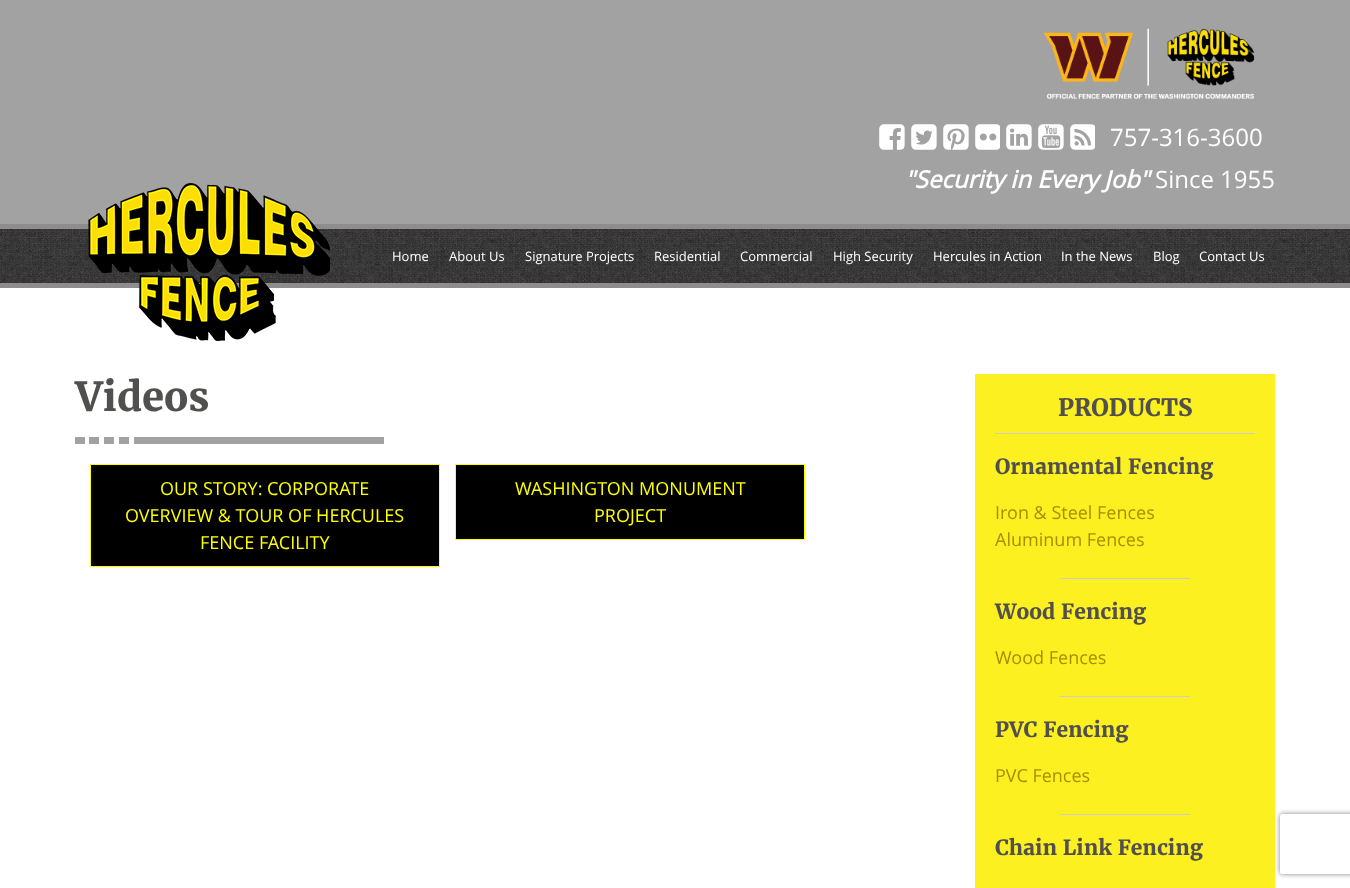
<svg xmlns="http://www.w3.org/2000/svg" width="1350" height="888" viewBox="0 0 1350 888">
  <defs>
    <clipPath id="clip1"><path d="M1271 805H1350V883H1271ZM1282 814H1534C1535 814 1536 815 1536 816V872C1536 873 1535 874 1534 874H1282C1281 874 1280 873 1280 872V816C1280 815 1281 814 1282 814Z" clip-rule="evenodd"/></clipPath>
  </defs>
  <rect width="100%" height="100%" fill="#fff"/>
  <path d="M0 0h1350v224H0z" fill="#a2a2a2"/>
  <image x="1043" y="28" width="212" height="71" href="img/1.png"/>
  <image x="879" y="124" width="26" height="26" href="img/2.png"/>
  <image x="911" y="124" width="26" height="26" href="img/3.png"/>
  <image x="943" y="124" width="26" height="26" href="img/4.png"/>
  <image x="975" y="124" width="25" height="26" href="img/5.png"/>
  <image x="1006" y="124" width="26" height="26" href="img/6.png"/>
  <image x="1038" y="124" width="26" height="26" href="img/7.png"/>
  <image x="1070" y="124" width="25" height="26" href="img/8.png"/>
  <image x="0" y="229" width="1350" height="54" href="img/9.png"/>
  <path d="M0 224h1350v5H0z" fill="#8e8c8c"/>
  <path d="M0 283h1350v5H0z" fill="#8e8c8c"/>
  <image x="88" y="183" width="242" height="158" href="img/10.png"/>
  <path d="M75 437h10v7H75z" fill="#a1a1a1"/>
  <path d="M89 437h10v7H89z" fill="#a1a1a1"/>
  <path d="M104 437h10v7H104z" fill="#a1a1a1"/>
  <path d="M119 437h10v7H119z" fill="#a1a1a1"/>
  <path d="M134 437h250v7H134z" fill="#a1a1a1"/>
  <path d="M90.5 464.5h349v102H90.5z" fill="#000" stroke="#ff0"/>
  <path d="M455.5 464.5h349v75H455.5z" fill="#000" stroke="#ff0"/>
  <path d="M975 374h300v514H975z" fill="#fcf020"/>
  <path d="M995 433h260v1H995z" fill="#ccc"/>
  <path d="M1060 578h130v1H1060z" fill="#ccc"/>
  <path d="M1060 696h130v1H1060z" fill="#ccc"/>
  <path d="M1060 814h130v1H1060z" fill="#ccc"/>
  <g clip-path="url(#clip1)">
    <rect x="1280" y="814" width="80" height="60" rx="2" fill="#808080" filter="blur(2.5px)"/>
  </g>
  <text x="1110" y="146" font-family="Open Sans" font-size="24" fill="#fff">757-316-3600</text>
  <text x="905" y="188" font-family="Open Sans" font-size="24" font-weight="bold" font-style="italic" fill="#fff">"Security in Every Job"</text>
  <text x="1155" y="188" font-family="Open Sans" font-size="24" fill="#fff">Since 1955</text>
  <g font-family="Open Sans" font-size="13" fill="#fff">
    <text x="392" y="261">Home</text>
    <text x="449" y="261">About Us</text>
    <text x="525" y="261">Signature Projects</text>
    <text x="654" y="261">Residential</text>
    <text x="740" y="261">Commercial</text>
    <text x="833" y="261">High Security</text>
    <text x="933" y="261">Hercules in Action</text>
    <text x="1061" y="261">In the News</text>
    <text x="1153" y="261">Blog</text>
    <text x="1199" y="261">Contact Us</text>
  </g>
  <text x="75" y="411" font-family="Merriweather" font-size="40" font-weight="bold" fill="#524f4f">Videos</text>
  <g font-family="Open Sans" font-size="18" fill="#ff0">
    <text x="160" y="495">OUR STORY: CORPORATE</text>
    <text x="125" y="522">OVERVIEW &amp; TOUR OF HERCULES</text>
    <text x="200" y="549">FENCE FACILITY</text>
    <text x="515" y="495">WASHINGTON MONUMENT</text>
    <text x="594" y="522">PROJECT</text>
  </g>
  <text x="1058" y="416" font-family="Merriweather" font-size="24" font-weight="bold" fill="#524f4f">PRODUCTS</text>
  <text x="995" y="474" font-family="Merriweather" font-size="21" font-weight="bold" fill="#524f4f">Ornamental Fencing</text>
  <g font-family="Open Sans" font-size="18" fill="#a88d00">
    <text x="995" y="519">Iron &amp; Steel Fences</text>
    <text x="995" y="546">Aluminum Fences</text>
  </g>
  <text x="995" y="619" font-family="Merriweather" font-size="21" font-weight="bold" fill="#524f4f">Wood Fencing</text>
  <text x="995" y="664" font-family="Open Sans" font-size="18" fill="#a88d00">Wood Fences</text>
  <text x="995" y="737" font-family="Merriweather" font-size="21" font-weight="bold" fill="#524f4f">PVC Fencing</text>
  <text x="995" y="782" font-family="Open Sans" font-size="18" fill="#a88d00">PVC Fences</text>
  <text x="995" y="855" font-family="Merriweather" font-size="21" font-weight="bold" fill="#524f4f">Chain Link Fencing</text>
</svg>
